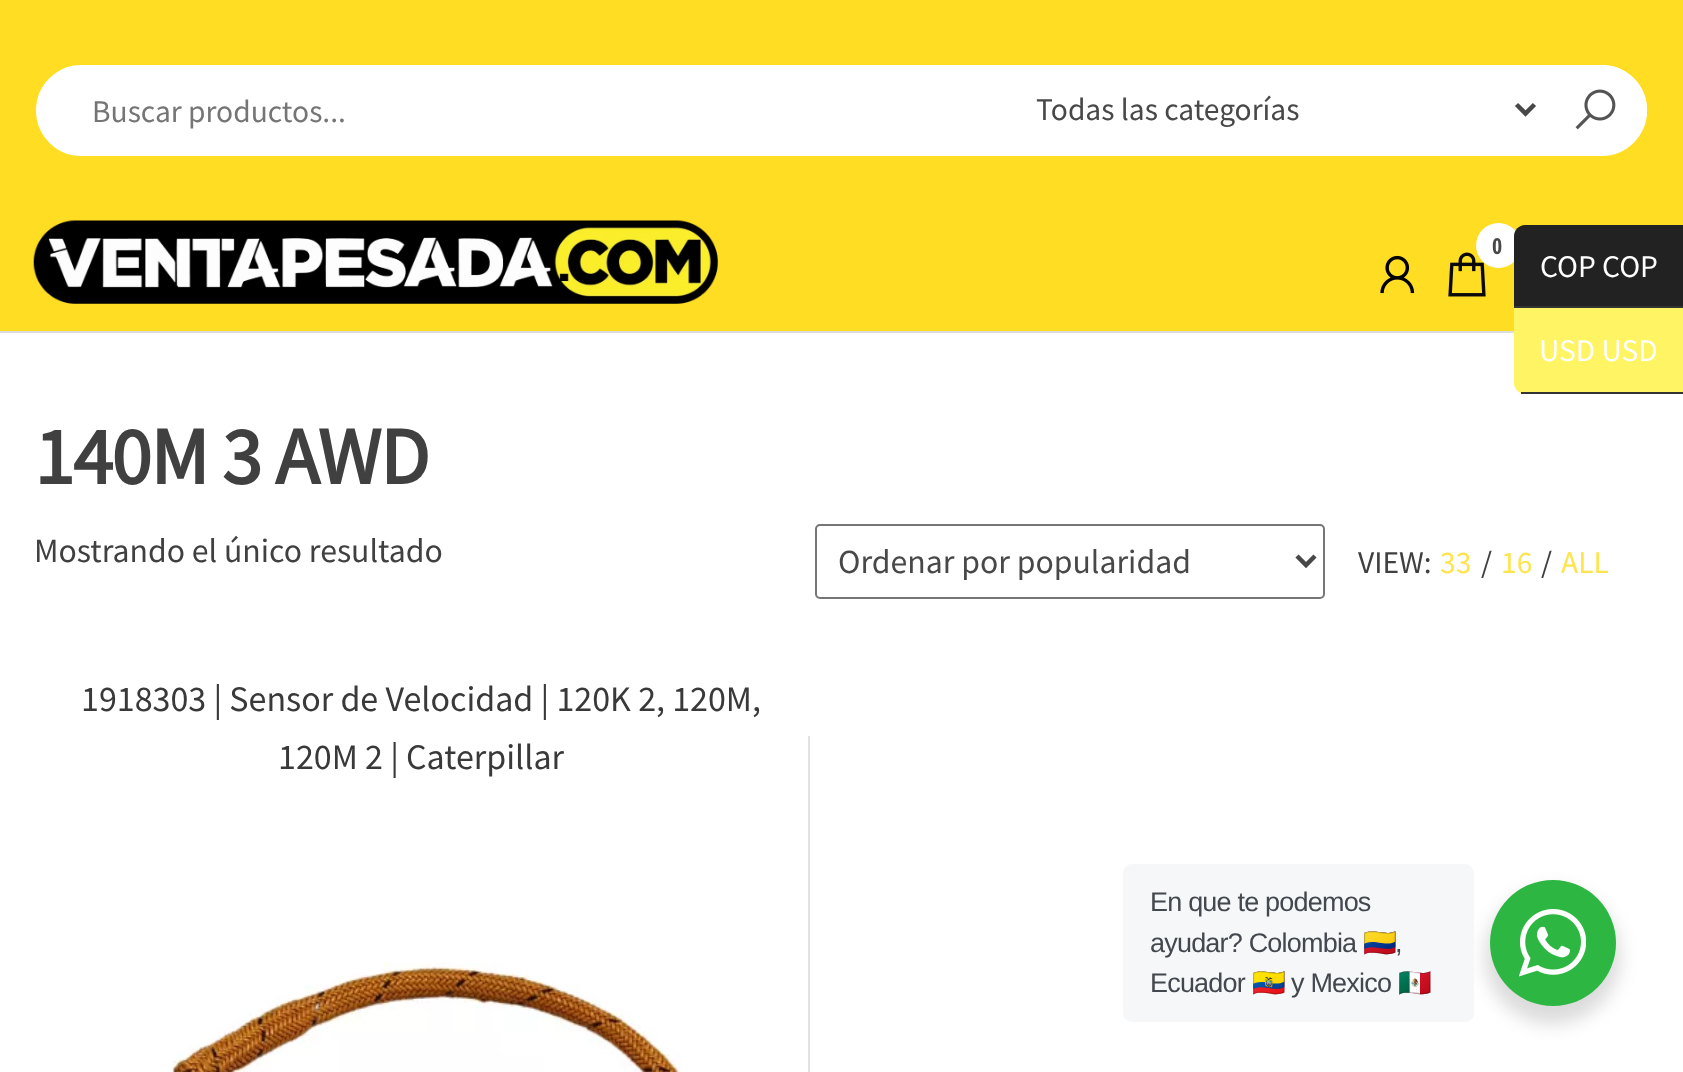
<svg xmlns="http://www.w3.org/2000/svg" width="1683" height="1072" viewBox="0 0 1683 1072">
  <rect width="100%" height="100%" fill="#fff"/>
  <path d="M0 0h1683v331H0z" fill="#fd2"/>
  <rect x="35" y="64" width="1613" height="93" rx="46.5" fill="#fff" stroke="#fd2" stroke-width="2"/>
  <path d="M1516.5 104.5L1525.5 113.5L1534.5 104.5" fill="none" stroke="#484848" stroke-width="4.5"/>
  <path d="M1544 65H1602C1627 65 1647 85 1647 110C1647 135 1627 155 1602 155H1544Z" fill="#fff"/>
  <image x="1575" y="89" width="41" height="41" href="img/1.png"/>
  <path d="M0 331h1514v2H0z" fill="#ddd"/>
  <image x="33" y="220" width="685" height="84" href="img/2.png"/>
  <image x="1448" y="252" width="38" height="45" href="img/3.png"/>
  <circle cx="1498.5" cy="245.5" r="22.5" fill="#fff"/>
  <image x="1380" y="255" width="35" height="39" href="img/4.png"/>
  <rect x="816" y="525" width="508" height="73" rx="4" fill="none" stroke="#767676" stroke-width="2"/>
  <path d="M1297 556L1306 565L1315 556" fill="none" stroke="#484848" stroke-width="4.5"/>
  <image x="172" y="962" width="509" height="110" href="img/5.png"/>
  <path d="M808 736h2v336H808z" fill="#e2e2e2"/>
  <path d="M1525 225H1683V308H1514V236C1514 230 1519 225 1525 225Z" fill="#222"/>
  <path d="M1514 306h169v2H1514z" fill="#333"/>
  <path d="M1514 308H1683V394H1525C1519 394 1514 389 1514 383Z" fill="#fff463"/>
  <path d="M1521 392h162v2H1521z" fill="#333"/>
  <rect x="1485" y="889" width="135" height="135" rx="67.5" fill="#00000024" filter="blur(9px)"/>
  <rect x="1123" y="864" width="351" height="158" rx="9" fill="#f5f7f9"/>
  <circle cx="1553" cy="943" r="63" fill="#2db742"/>
  <image x="1519" y="909" width="67" height="68" href="img/6.png"/>
  <text x="92" y="122" font-family="Source Sans Pro" font-size="31.5" fill="#757575">Buscar productos...</text>
  <text x="1036" y="120" font-family="Source Sans Pro" font-size="31.5" fill="#484848">Todas las categorías</text>
  <text x="1492" y="254" font-family="Open Sans Condensed" font-size="22" font-weight="bold" letter-spacing="2" fill="#484848">0</text>
  <text x="34" y="484" font-family="Source Sans Pro" font-size="81" font-weight="bold" letter-spacing="-1.6" fill="#404040">140M 3 AWD</text>
  <text x="34" y="562" font-family="Source Sans Pro" font-size="33.75" fill="#404040">Mostrando el único resultado</text>
  <text x="838" y="573" font-family="Source Sans Pro" font-size="33.75" fill="#484848">Ordenar por popularidad</text>
  <text x="1358" y="573" font-family="Source Sans Pro" font-size="31.5" fill="#404040">VIEW:</text>
  <text x="1440" y="573" font-family="Source Sans Pro" font-size="31.5" fill="#ffe44e">33</text>
  <text x="1481" y="573" font-family="Source Sans Pro" font-size="31.5" fill="#404040">/</text>
  <text x="1501" y="573" font-family="Source Sans Pro" font-size="31.5" fill="#ffe44e">16</text>
  <text x="1541" y="573" font-family="Source Sans Pro" font-size="31.5" fill="#404040">/</text>
  <text x="1561" y="573" font-family="Source Sans Pro" font-size="31.5" fill="#ffe44e">ALL</text>
  <g font-family="Source Sans Pro" font-size="36" fill="#39393a">
    <text x="81" y="711">1918303 | Sensor de Velocidad | 120K 2, 120M,</text>
    <text x="278" y="769">120M 2 | Caterpillar</text>
  </g>
  <g font-family="Source Sans Pro" font-size="31.5" fill="#fff">
    <text x="1540" y="277">COP COP</text>
    <text x="1539" y="361">USD USD</text>
  </g>
  <g font-family="Liberation Sans" font-size="27" letter-spacing="-0.8" fill="#43474e">
    <text x="1150" y="911">En que te podemos</text>
    <text x="1150" y="952">ayudar? Colombia</text>
  </g>
  <text x="1363" y="952" font-family="Noto Color Emoji" font-size="27" letter-spacing="-0.8" fill="#43474e">🇨🇴</text>
  <g font-family="Liberation Sans" font-size="27" letter-spacing="-0.8" fill="#43474e">
    <text x="1395" y="952">,</text>
    <text x="1150" y="992">Ecuador</text>
  </g>
  <text x="1252" y="992" font-family="Noto Color Emoji" font-size="27" letter-spacing="-0.8" fill="#43474e">🇪🇨</text>
  <text x="1291" y="992" font-family="Liberation Sans" font-size="27" letter-spacing="-0.8" fill="#43474e">y Mexico</text>
  <text x="1398" y="992" font-family="Noto Color Emoji" font-size="27" letter-spacing="-0.8" fill="#43474e">🇲🇽</text>
</svg>
